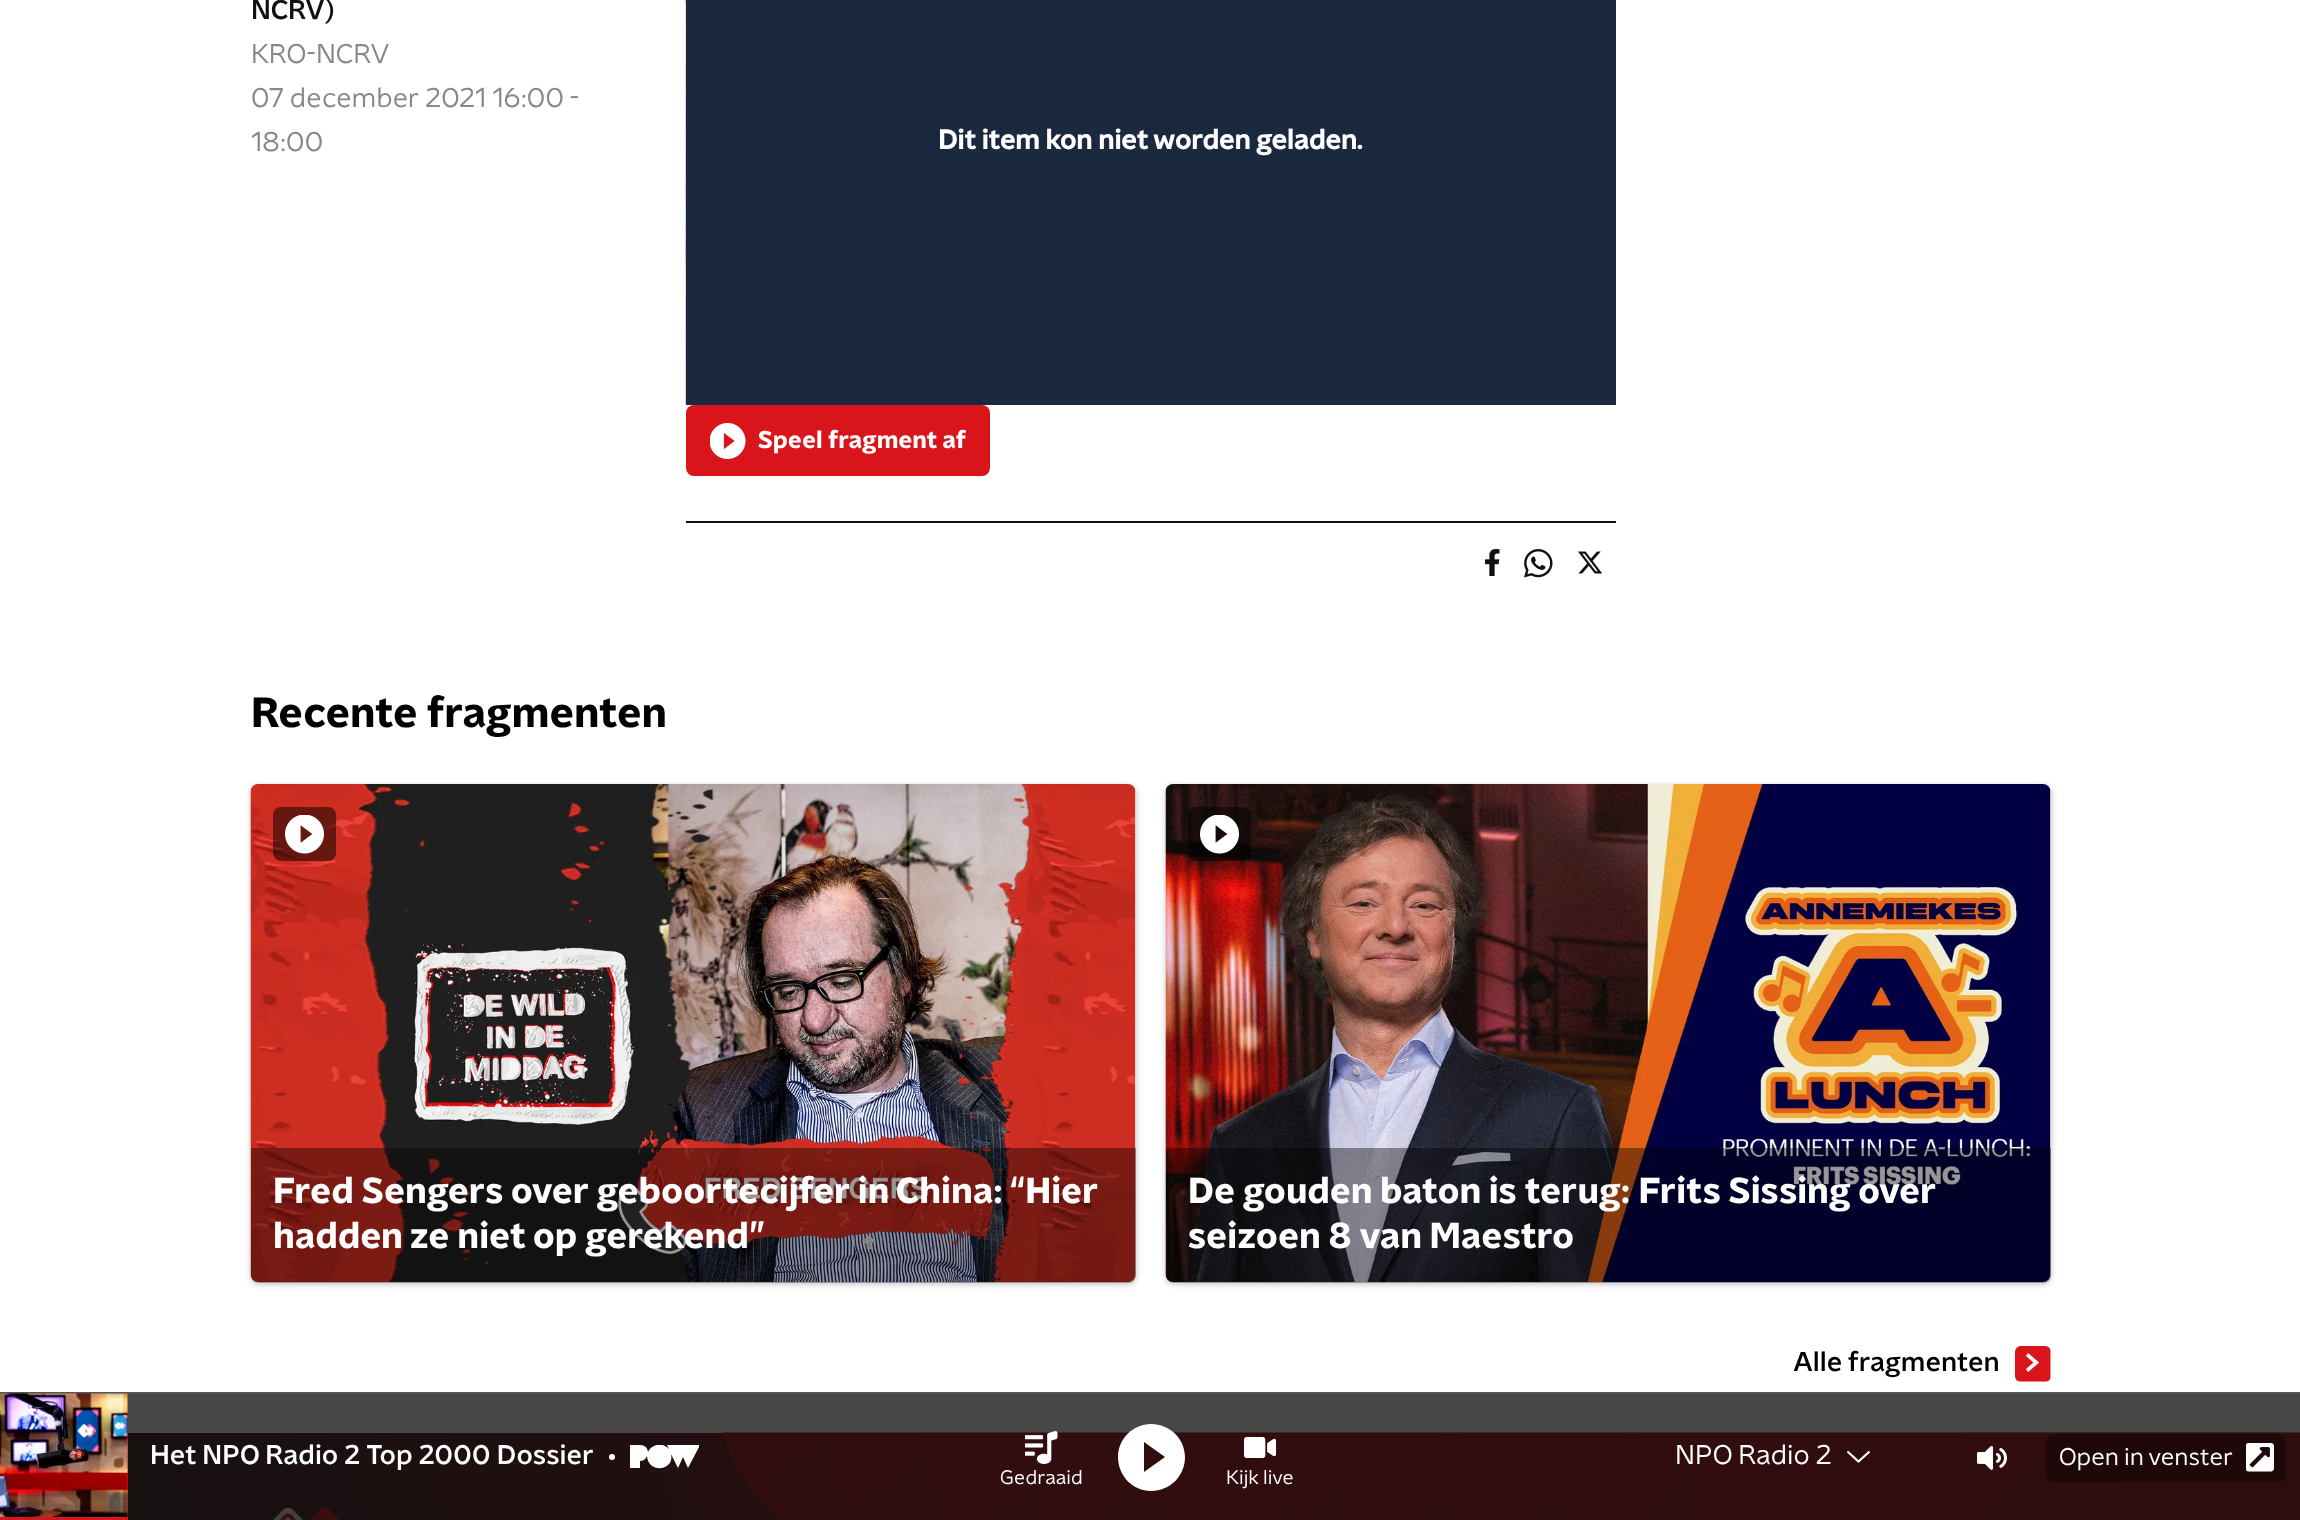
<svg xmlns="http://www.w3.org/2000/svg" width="2300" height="1520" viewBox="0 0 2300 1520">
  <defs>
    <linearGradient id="g1" gradientUnits="userSpaceOnUse" x1="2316" y1="1483" x2="-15" y2="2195"><stop offset="0.14" stop-color="#3d0c0e"/><stop offset="1" stop-color="#0f1112"/></linearGradient>
    <clipPath id="clip1"><path d="M630 1445h69v24H630z"/></clipPath>
  </defs>
  <rect width="100%" height="100%" fill="#fff"/>
  <path d="M128 1394h2172v39H128z" fill="#474747"/>
  <image x="685" y="0" width="1" height="405" href="img/1.png"/>
  <path d="M686 0h930v405H686z" fill="#1b293f"/>
  <rect x="686" y="405" width="304" height="71" rx="8" fill="#d9151b"/>
  <image x="710" y="423" width="36" height="36" href="img/2.png"/>
  <path d="M686 521h930v2H686z" fill="#101010"/>
  <image x="1485" y="549" width="15" height="27" href="img/3.png"/>
  <image x="1524" y="549" width="29" height="29" href="img/4.png"/>
  <image x="1578" y="551" width="24" height="23" href="img/5.png"/>
  <rect x="251" y="786" width="885" height="498" rx="8" fill="#00000040" filter="blur(3px)"/>
  <rect x="251" y="785" width="885" height="498" rx="8" fill="#fff"/>
  <image x="250" y="784" width="886" height="498" href="img/6.png"/>
  <rect x="273" y="807" width="63" height="54" rx="8" fill="#00000080"/>
  <image x="285" y="815" width="39" height="39" href="img/7.png"/>
  <path d="M251 1148H1136V1275C1136 1279.5 1132.5 1283 1128 1283H259C254.5 1283 251 1279.5 251 1275Z" fill="#00000066"/>
  <rect x="1166" y="786" width="885" height="498" rx="8" fill="#00000040" filter="blur(3px)"/>
  <rect x="1166" y="785" width="885" height="498" rx="8" fill="#fff"/>
  <image x="1165" y="784" width="886" height="498" href="img/8.png"/>
  <rect x="1188" y="807" width="63" height="54" rx="8" fill="#00000080"/>
  <image x="1200" y="815" width="39" height="39" href="img/9.png"/>
  <path d="M1166 1148H2051V1275C2051 1279.5 2047.5 1283 2043 1283H1174C1169.5 1283 1166 1279.5 1166 1275Z" fill="#00000066"/>
  <image x="2015" y="1346" width="36" height="36" href="img/10.png"/>
  <path d="M128 1433h2172v87H128z" fill="url(#g1)"/>
  <image x="722" y="1432" width="1578" height="88" href="img/11.png"/>
  <image x="273" y="1508" width="67" height="12" href="img/12.png"/>
  <path d="M0 1392h2300v2H0z" fill="#565656"/>
  <path d="M127 1394h1v123H127z" fill="#d9151b"/>
  <image x="0" y="1393" width="128" height="124" href="img/13.png"/>
  <path d="M0 1517h128v3H0z" fill="#d9151b"/>
  <circle cx="612" cy="1457" r="3" fill="#fff"/>
  <g clip-path="url(#clip1)">
    <path d="M667 1445L669 1449C663 1442 651 1444 648 1452C647 1443 637 1445 630 1445V1468H640V1461C643 1461 646 1459 647 1456C648 1474 675 1471 671 1454L678 1468L683 1457L688 1468L700 1445Z" fill="#fff"/>
  </g>
  <path d="M1847.5 1451.5L1858.5 1461.5L1869.5 1451.5" fill="none" stroke="#fff" stroke-width="2.2"/>
  <image x="1977" y="1446" width="30" height="24" href="img/14.png"/>
  <rect x="2046" y="1434" width="240" height="48" rx="8" fill="#00000059"/>
  <image x="2246" y="1443" width="28" height="29" href="img/15.png"/>
  <image x="1025" y="1431" width="33" height="33" href="img/16.png"/>
  <path d="M1151 1424C1133 1424 1118 1439 1118 1457C1118 1476 1133 1491 1151 1491C1170 1491 1185 1476 1185 1457C1185 1439 1170 1424 1151 1424ZM1144 1472V1442L1165 1457Z" fill="#fff"/>
  <image x="1244" y="1437" width="33" height="21" href="img/17.png"/>
  <text x="251" y="19" font-family="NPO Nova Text" font-size="27" font-weight="500" fill="#101010">NCRV)</text>
  <g font-family="NPO Nova Text" font-size="27" fill="#888">
    <text x="251" y="63">KRO-NCRV</text>
    <text x="251" y="107">07 december 2021 16:00 -</text>
    <text x="251" y="151">18:00</text>
  </g>
  <text x="938" y="149" font-family="NPO Nova Text" font-size="27" font-weight="bold" fill="#fff">Dit item kon niet worden geladen.</text>
  <text x="758" y="448" font-family="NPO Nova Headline" font-size="24" font-weight="bold" fill="#fff">Speel fragment af</text>
  <text x="251" y="727" font-family="NPO Nova Headline" font-size="42" font-weight="bold" fill="#000">Recente fragmenten</text>
  <g font-family="NPO Nova Headline" font-size="36" font-weight="bold" fill="#fff">
    <text x="273" y="1203" word-spacing="-0.25">Fred Sengers over geboortecijfer in China: “Hier</text>
    <text x="273" y="1248">hadden ze niet op gerekend”</text>
    <text x="1188" y="1203" word-spacing="-0.25">De gouden baton is terug: Frits Sissing over</text>
    <text x="1188" y="1248">seizoen 8 van Maestro</text>
  </g>
  <text x="1793" y="1371" font-family="NPO Nova Text" font-size="27" font-weight="500" fill="#000">Alle fragmenten</text>
  <text x="150" y="1464" font-family="NPO Nova Text" font-size="27" font-weight="500" fill="#fff">Het NPO Radio 2 Top 2000 Dossier</text>
  <text x="1675" y="1464" font-family="NPO Nova Text" font-size="27" fill="#fff">NPO Radio 2</text>
  <text x="2059" y="1465" font-family="NPO Nova Text" font-size="24" fill="#fff">Open in venster</text>
  <g font-family="NPO Nova Text" font-size="19.5" fill="#fff">
    <text x="1000" y="1484">Gedraaid</text>
    <text x="1226" y="1484">Kijk live</text>
  </g>
</svg>
